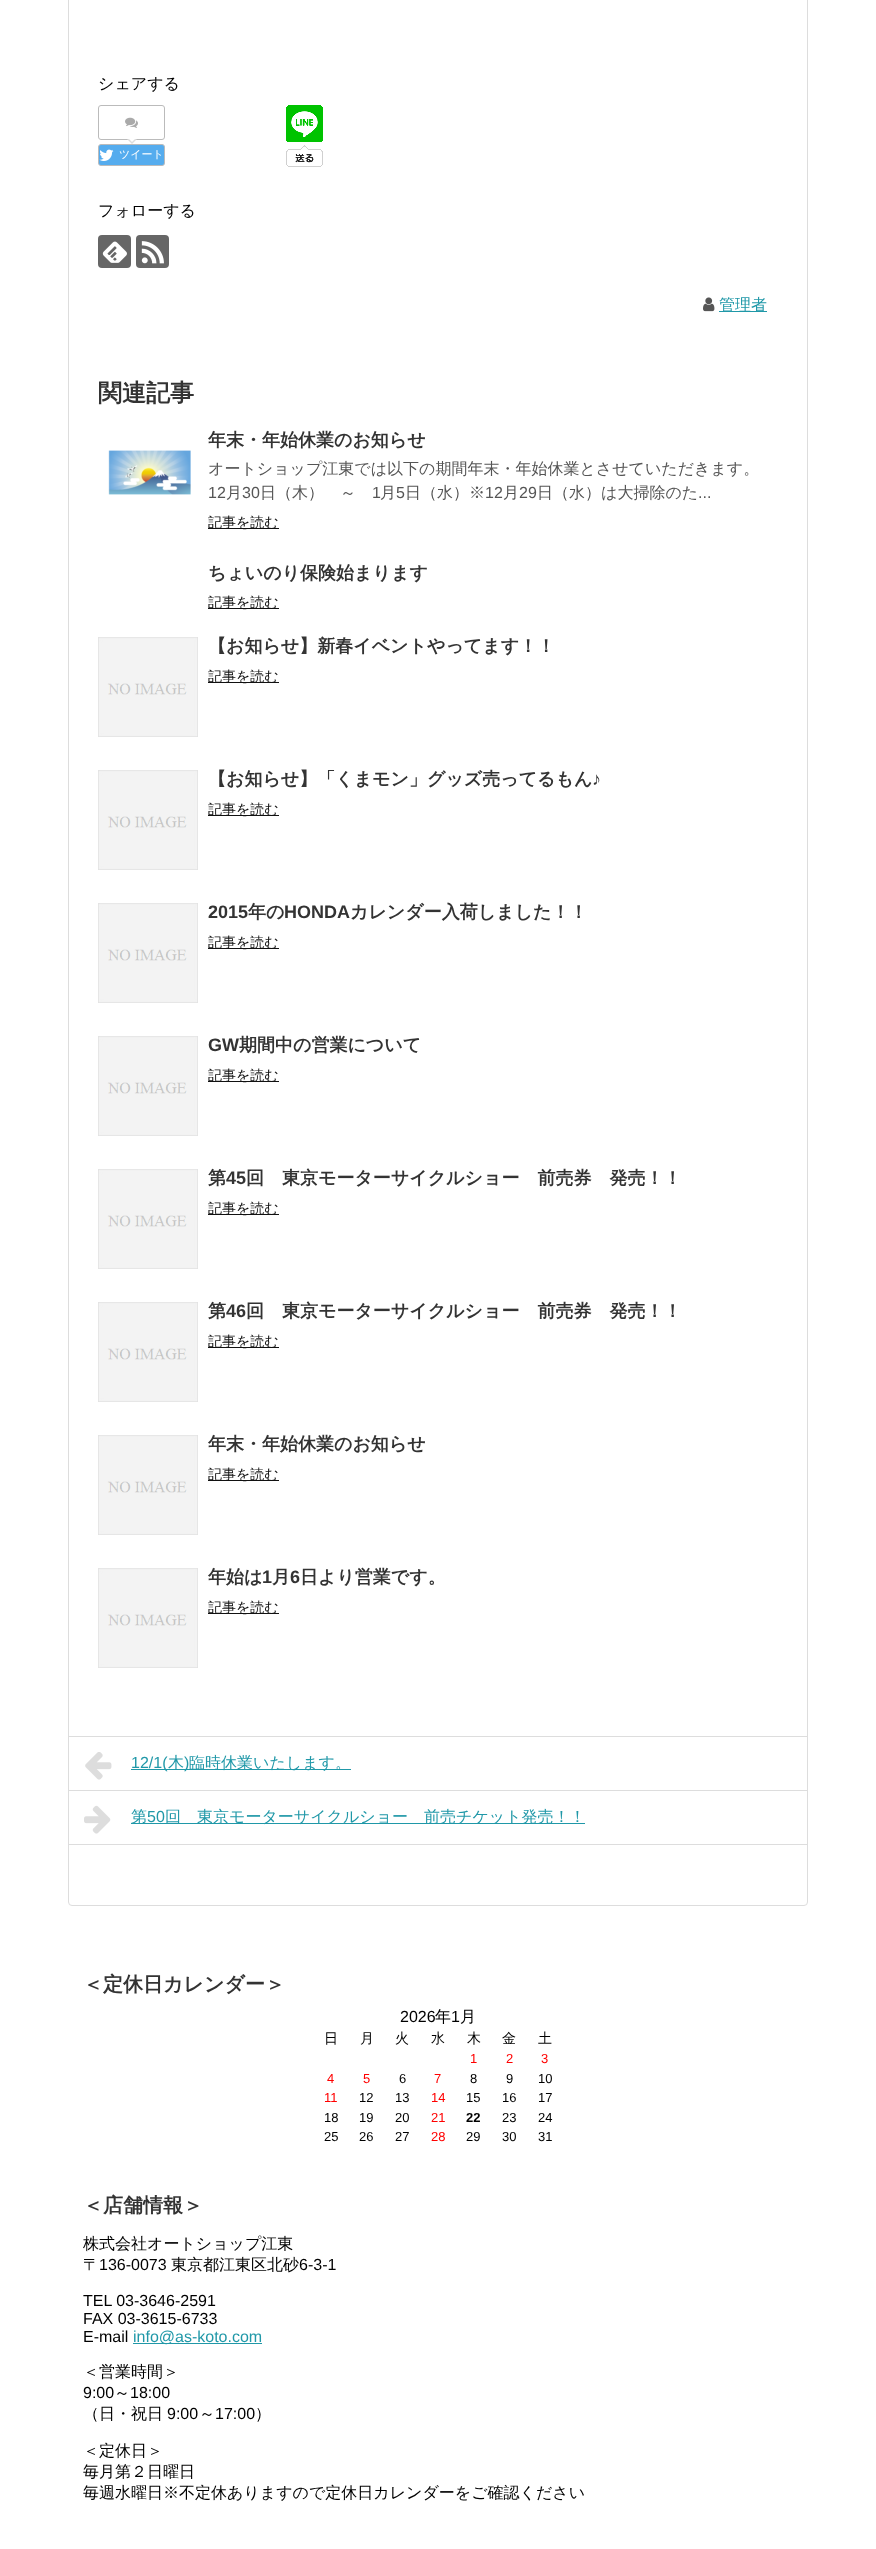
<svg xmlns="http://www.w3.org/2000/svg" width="876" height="2549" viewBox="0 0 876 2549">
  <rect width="100%" height="100%" fill="#fff"/>
  <rect x="68.5" y="-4.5" width="739" height="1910" rx="3.5" fill="none" stroke="#ddd"/>
  <rect x="98.5" y="105.5" width="66" height="34" rx="2.5" fill="none" stroke="#bbb"/>
  <image x="125" y="117" width="13" height="11" href="img/1.png"/>
  <path d="M127 139H137L132 144Z" fill="#ddd"/>
  <path d="M129 139H135L132 142Z" fill="#fff"/>
  <rect x="98.5" y="144.5" width="66" height="21" rx="2.5" fill="#55acee" stroke="#bbb"/>
  <image x="99" y="149" width="15" height="12" href="img/2.png"/>
  <image x="286" y="105" width="37" height="62" href="img/3.png"/>
  <rect x="98" y="235" width="33" height="33" rx="4" fill="#666"/>
  <image x="102" y="241" width="25" height="22" href="img/4.png"/>
  <rect x="136" y="235" width="33" height="33" rx="4" fill="#666"/>
  <image x="141" y="241" width="23" height="23" href="img/5.png"/>
  <image x="703" y="297" width="12" height="15" href="img/6.png"/>
  <path d="M719 311h48v1H719z" fill="#2098a8"/>
  <image x="108" y="450" width="83" height="45" href="img/7.png"/>
  <path d="M208 528h71v1H208z" fill="#111"/>
  <path d="M208 608h71v1H208z" fill="#111"/>
  <image x="98" y="637" width="100" height="100" href="img/8.png"/>
  <path d="M208 682h71v1H208z" fill="#111"/>
  <image x="98" y="770" width="100" height="100" href="img/8.png"/>
  <path d="M208 815h71v1H208z" fill="#111"/>
  <image x="98" y="903" width="100" height="100" href="img/8.png"/>
  <path d="M208 948h71v1H208z" fill="#111"/>
  <image x="98" y="1036" width="100" height="100" href="img/8.png"/>
  <path d="M208 1081h71v1H208z" fill="#111"/>
  <image x="98" y="1169" width="100" height="100" href="img/8.png"/>
  <path d="M208 1214h71v1H208z" fill="#111"/>
  <image x="98" y="1302" width="100" height="100" href="img/8.png"/>
  <path d="M208 1347h71v1H208z" fill="#111"/>
  <image x="98" y="1435" width="100" height="100" href="img/8.png"/>
  <path d="M208 1480h71v1H208z" fill="#111"/>
  <image x="98" y="1568" width="100" height="100" href="img/8.png"/>
  <path d="M208 1613h71v1H208z" fill="#111"/>
  <path d="M68 1736h740v1H68z" fill="#ddd"/>
  <path d="M68 1790h740v1H68z" fill="#ddd"/>
  <image x="85" y="1752" width="27" height="28" href="img/9.png"/>
  <path d="M131 1769h220v1H131z" fill="#2098a8"/>
  <path d="M68 1844h740v1H68z" fill="#ddd"/>
  <image x="84" y="1805" width="27" height="29" href="img/10.png"/>
  <path d="M131 1823h454v1H131z" fill="#2098a8"/>
  <path d="M133 2343h129v1H133z" fill="#2098a8"/>
  <text x="98" y="89" font-family="WenQuanYi Zen Hei" font-size="16" font-weight="500" fill="#000">シェアする</text>
  <text x="119" y="158" font-family="WenQuanYi Zen Hei" font-size="11" font-weight="500" fill="#fff">ツイート</text>
  <text x="98" y="216" font-family="WenQuanYi Zen Hei" font-size="16" font-weight="500" fill="#000">フォローする</text>
  <text x="719" y="310" font-family="WenQuanYi Zen Hei" font-size="16" font-weight="500" fill="#2098a8">管理者</text>
  <text x="98" y="401" font-family="WenQuanYi Zen Hei" font-size="24" font-weight="bold" fill="#333">関連記事</text>
  <text x="208" y="446" font-family="WenQuanYi Zen Hei" font-size="18" font-weight="bold" fill="#333">年末・年始休業のお知らせ</text>
  <text x="208" y="474" font-family="WenQuanYi Zen Hei" font-size="16" font-weight="500" fill="#555">オートショップ江東では以下の期間年末・年始休業とさせていただきます。</text>
  <text x="208" y="498" font-family="Liberation Sans" font-size="16" fill="#555">12</text>
  <text x="226" y="498" font-family="WenQuanYi Zen Hei" font-size="16" font-weight="500" fill="#555">月</text>
  <text x="242" y="498" font-family="Liberation Sans" font-size="16" fill="#555">30</text>
  <text x="260" y="498" font-family="WenQuanYi Zen Hei" font-size="16" font-weight="500" fill="#555">日（木）　～</text>
  <text x="372" y="498" font-family="Liberation Sans" font-size="16" fill="#555">1</text>
  <text x="380" y="498" font-family="WenQuanYi Zen Hei" font-size="16" font-weight="500" fill="#555">月</text>
  <text x="396" y="498" font-family="Liberation Sans" font-size="16" fill="#555">5</text>
  <text x="405" y="498" font-family="WenQuanYi Zen Hei" font-size="16" font-weight="500" fill="#555">日（水）※</text>
  <text x="485" y="498" font-family="Liberation Sans" font-size="16" fill="#555">12</text>
  <text x="503" y="498" font-family="WenQuanYi Zen Hei" font-size="16" font-weight="500" fill="#555">月</text>
  <text x="519" y="498" font-family="Liberation Sans" font-size="16" fill="#555">29</text>
  <text x="537" y="498" font-family="WenQuanYi Zen Hei" font-size="16" font-weight="500" fill="#555">日（水）は大掃除のた</text>
  <text x="698" y="498" font-family="Liberation Sans" font-size="16" fill="#555">...</text>
  <text x="208" y="527" font-family="WenQuanYi Zen Hei" font-size="14" font-weight="500" fill="#111">記事を読む</text>
  <text x="208" y="579" font-family="WenQuanYi Zen Hei" font-size="18" font-weight="bold" fill="#333">ちょいのり保険始まります</text>
  <text x="208" y="607" font-family="WenQuanYi Zen Hei" font-size="14" font-weight="500" fill="#111">記事を読む</text>
  <text x="208" y="652" font-family="WenQuanYi Zen Hei" font-size="18" font-weight="bold" fill="#333">【お知らせ】新春イベントやってます！！</text>
  <text x="208" y="681" font-family="WenQuanYi Zen Hei" font-size="14" font-weight="500" fill="#111">記事を読む</text>
  <text x="208" y="785" font-family="WenQuanYi Zen Hei" font-size="18" font-weight="bold" fill="#333">【お知らせ】「くまモン」グッズ売ってるもん</text>
  <text x="592" y="785" font-family="Liberation Sans" font-size="18" font-weight="bold" fill="#333">♪</text>
  <text x="208" y="814" font-family="WenQuanYi Zen Hei" font-size="14" font-weight="500" fill="#111">記事を読む</text>
  <text x="208" y="918" font-family="Liberation Sans" font-size="18" font-weight="bold" fill="#333">2015</text>
  <text x="248" y="918" font-family="WenQuanYi Zen Hei" font-size="18" font-weight="bold" fill="#333">年の</text>
  <text x="284" y="918" font-family="Liberation Sans" font-size="18" font-weight="bold" fill="#333">HONDA</text>
  <text x="350" y="918" font-family="WenQuanYi Zen Hei" font-size="18" font-weight="bold" fill="#333">カレンダー入荷しました！！</text>
  <text x="208" y="947" font-family="WenQuanYi Zen Hei" font-size="14" font-weight="500" fill="#111">記事を読む</text>
  <text x="208" y="1051" font-family="Liberation Sans" font-size="18" font-weight="bold" fill="#333">GW</text>
  <text x="239" y="1051" font-family="WenQuanYi Zen Hei" font-size="18" font-weight="bold" fill="#333">期間中の営業について</text>
  <text x="208" y="1080" font-family="WenQuanYi Zen Hei" font-size="14" font-weight="500" fill="#111">記事を読む</text>
  <text x="208" y="1184" font-family="WenQuanYi Zen Hei" font-size="18" font-weight="bold" fill="#333">第</text>
  <text x="226" y="1184" font-family="Liberation Sans" font-size="18" font-weight="bold" fill="#333">45</text>
  <text x="246" y="1184" font-family="WenQuanYi Zen Hei" font-size="18" font-weight="bold" fill="#333">回　東京モーターサイクルショー　前売券　発売！！</text>
  <text x="208" y="1213" font-family="WenQuanYi Zen Hei" font-size="14" font-weight="500" fill="#111">記事を読む</text>
  <text x="208" y="1317" font-family="WenQuanYi Zen Hei" font-size="18" font-weight="bold" fill="#333">第</text>
  <text x="226" y="1317" font-family="Liberation Sans" font-size="18" font-weight="bold" fill="#333">46</text>
  <text x="246" y="1317" font-family="WenQuanYi Zen Hei" font-size="18" font-weight="bold" fill="#333">回　東京モーターサイクルショー　前売券　発売！！</text>
  <text x="208" y="1346" font-family="WenQuanYi Zen Hei" font-size="14" font-weight="500" fill="#111">記事を読む</text>
  <text x="208" y="1450" font-family="WenQuanYi Zen Hei" font-size="18" font-weight="bold" fill="#333">年末・年始休業のお知らせ</text>
  <text x="208" y="1479" font-family="WenQuanYi Zen Hei" font-size="14" font-weight="500" fill="#111">記事を読む</text>
  <text x="208" y="1583" font-family="WenQuanYi Zen Hei" font-size="18" font-weight="bold" fill="#333">年始は</text>
  <text x="262" y="1583" font-family="Liberation Sans" font-size="18" font-weight="bold" fill="#333">1</text>
  <text x="272" y="1583" font-family="WenQuanYi Zen Hei" font-size="18" font-weight="bold" fill="#333">月</text>
  <text x="290" y="1583" font-family="Liberation Sans" font-size="18" font-weight="bold" fill="#333">6</text>
  <text x="300" y="1583" font-family="WenQuanYi Zen Hei" font-size="18" font-weight="bold" fill="#333">日より営業です。</text>
  <text x="208" y="1612" font-family="WenQuanYi Zen Hei" font-size="14" font-weight="500" fill="#111">記事を読む</text>
  <text x="131" y="1768" font-family="Liberation Sans" font-size="16" fill="#2098a8">12/1(</text>
  <text x="168" y="1768" font-family="WenQuanYi Zen Hei" font-size="16" font-weight="500" fill="#2098a8">木</text>
  <text x="184" y="1768" font-family="Liberation Sans" font-size="16" fill="#2098a8">)</text>
  <g font-family="WenQuanYi Zen Hei" font-size="16" font-weight="500" fill="#2098a8">
    <text x="189" y="1768">臨時休業いたします。</text>
    <text x="131" y="1822">第</text>
  </g>
  <text x="147" y="1822" font-family="Liberation Sans" font-size="16" fill="#2098a8">50</text>
  <text x="165" y="1822" font-family="WenQuanYi Zen Hei" font-size="16" font-weight="500" fill="#2098a8">回　東京モーターサイクルショー　前売チケット発売！！</text>
  <text x="83" y="1991" font-family="WenQuanYi Zen Hei" font-size="20" font-weight="bold" fill="#333">＜定休日カレンダー＞</text>
  <text x="400" y="2022" font-family="Liberation Sans" font-size="16" fill="#000">2026</text>
  <text x="435" y="2022" font-family="WenQuanYi Zen Hei" font-size="16" font-weight="500" fill="#000">年</text>
  <text x="451" y="2022" font-family="Liberation Sans" font-size="16" fill="#000">1</text>
  <text x="460" y="2022" font-family="WenQuanYi Zen Hei" font-size="16" font-weight="500" fill="#000">月</text>
  <g font-family="WenQuanYi Zen Hei" font-size="14" font-weight="500" fill="#000">
    <text x="324" y="2043">日</text>
    <text x="360" y="2043">月</text>
    <text x="395" y="2043">火</text>
    <text x="431" y="2043">水</text>
    <text x="467" y="2043">木</text>
    <text x="502" y="2043">金</text>
    <text x="538" y="2043">土</text>
  </g>
  <g font-family="Liberation Sans" font-size="13" fill="#f00">
    <text x="470" y="2063">1</text>
    <text x="506" y="2063">2</text>
    <text x="541" y="2063">3</text>
    <text x="327" y="2083">4</text>
    <text x="363" y="2083">5</text>
  </g>
  <text x="399" y="2083" font-family="Liberation Sans" font-size="13" fill="#000">6</text>
  <text x="434" y="2083" font-family="Liberation Sans" font-size="13" fill="#f00">7</text>
  <g font-family="Liberation Sans" font-size="13" fill="#000">
    <text x="470" y="2083">8</text>
    <text x="506" y="2083">9</text>
    <text x="538" y="2083">10</text>
  </g>
  <text x="324" y="2102" font-family="Liberation Sans" font-size="13" fill="#f00">11</text>
  <g font-family="Liberation Sans" font-size="13" fill="#000">
    <text x="359" y="2102">12</text>
    <text x="395" y="2102">13</text>
  </g>
  <text x="431" y="2102" font-family="Liberation Sans" font-size="13" fill="#f00">14</text>
  <g font-family="Liberation Sans" font-size="13" fill="#000">
    <text x="466" y="2102">15</text>
    <text x="502" y="2102">16</text>
    <text x="538" y="2102">17</text>
    <text x="324" y="2122">18</text>
    <text x="359" y="2122">19</text>
    <text x="395" y="2122">20</text>
  </g>
  <text x="431" y="2122" font-family="Liberation Sans" font-size="13" fill="#f00">21</text>
  <text x="466" y="2122" font-family="Liberation Sans" font-size="13" font-weight="bold" fill="#000">22</text>
  <g font-family="Liberation Sans" font-size="13" fill="#000">
    <text x="502" y="2122">23</text>
    <text x="538" y="2122">24</text>
    <text x="324" y="2141">25</text>
    <text x="359" y="2141">26</text>
    <text x="395" y="2141">27</text>
  </g>
  <text x="431" y="2141" font-family="Liberation Sans" font-size="13" fill="#f00">28</text>
  <g font-family="Liberation Sans" font-size="13" fill="#000">
    <text x="466" y="2141">29</text>
    <text x="502" y="2141">30</text>
    <text x="538" y="2141">31</text>
  </g>
  <text x="83" y="2212" font-family="WenQuanYi Zen Hei" font-size="20" font-weight="bold" fill="#333">＜店舗情報＞</text>
  <g font-family="WenQuanYi Zen Hei" font-size="16" font-weight="500" fill="#000">
    <text x="83" y="2249">株式会社オートショップ江東</text>
    <text x="83" y="2270">〒</text>
  </g>
  <text x="99" y="2270" font-family="Liberation Sans" font-size="16" fill="#000">136-0073</text>
  <text x="171" y="2270" font-family="WenQuanYi Zen Hei" font-size="16" font-weight="500" fill="#000">東京都江東区北砂</text>
  <g font-family="Liberation Sans" font-size="16" fill="#000">
    <text x="299" y="2270">6-3-1</text>
    <text x="83" y="2306">TEL 03-3646-2591</text>
    <text x="83" y="2324">FAX 03-3615-6733</text>
    <text x="83" y="2342">E-mail</text>
  </g>
  <text x="133" y="2342" font-family="Liberation Sans" font-size="16" fill="#2098a8">info@as-koto.com</text>
  <text x="83" y="2377" font-family="WenQuanYi Zen Hei" font-size="16" font-weight="500" fill="#000">＜営業時間＞</text>
  <text x="83" y="2398" font-family="Liberation Sans" font-size="16" fill="#000">9:00</text>
  <text x="114" y="2398" font-family="WenQuanYi Zen Hei" font-size="16" font-weight="500" fill="#000">～</text>
  <text x="130" y="2398" font-family="Liberation Sans" font-size="16" fill="#000">18:00</text>
  <text x="83" y="2419" font-family="WenQuanYi Zen Hei" font-size="16" font-weight="500" fill="#000">（日・祝日</text>
  <text x="167" y="2419" font-family="Liberation Sans" font-size="16" fill="#000">9:00</text>
  <text x="199" y="2419" font-family="WenQuanYi Zen Hei" font-size="16" font-weight="500" fill="#000">～</text>
  <text x="215" y="2419" font-family="Liberation Sans" font-size="16" fill="#000">17:00</text>
  <g font-family="WenQuanYi Zen Hei" font-size="16" font-weight="500" fill="#000">
    <text x="255" y="2419">）</text>
    <text x="83" y="2456">＜定休日＞</text>
    <text x="83" y="2477">毎月第２日曜日</text>
    <text x="83" y="2498">毎週水曜日※不定休ありますので定休日カレンダーをご確認ください</text>
  </g>
</svg>
